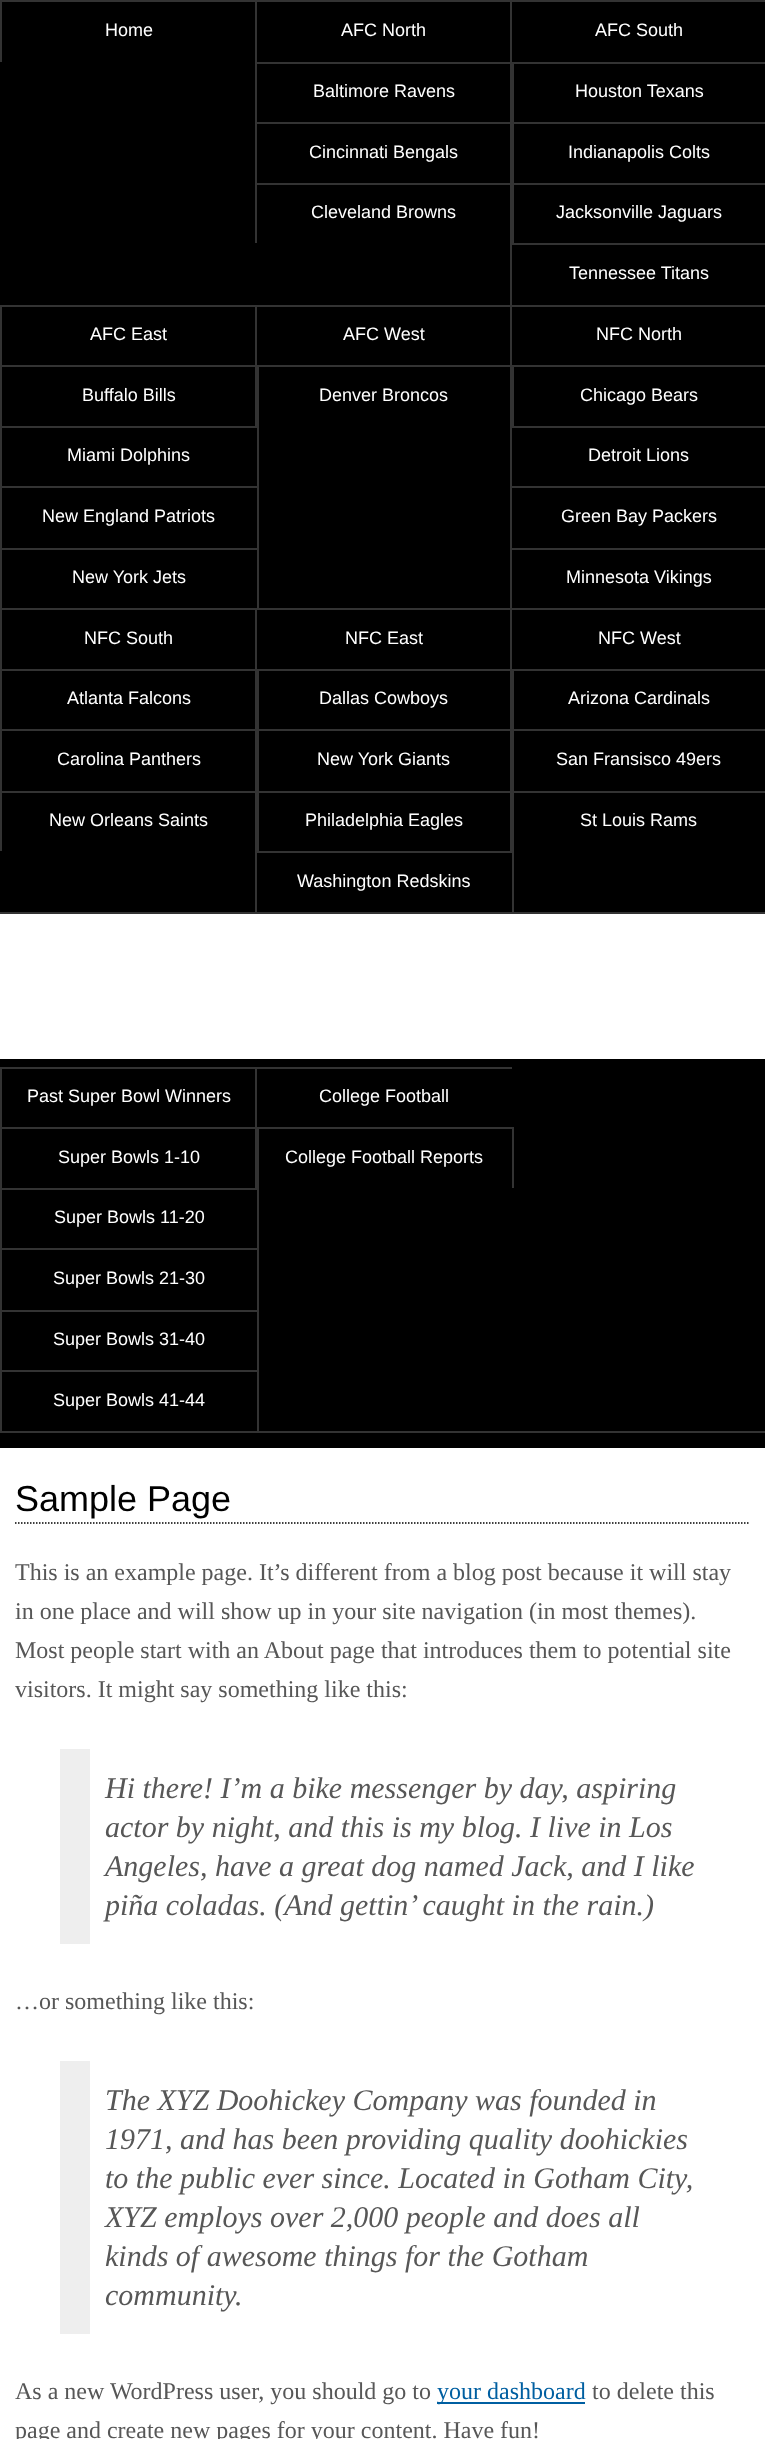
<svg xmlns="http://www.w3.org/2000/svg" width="765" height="2439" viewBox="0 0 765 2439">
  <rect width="100%" height="100%" fill="#fff"/>
  <path d="M0 2h765v910H0z" fill="#000"/>
  <path d="M0 912h765v2H0z" fill="#333"/>
  <path d="M0 0h765v2H0z" fill="#333"/>
  <path d="M0 0h2v62H0z" fill="#333"/>
  <path d="M255 0h2v62H255z" fill="#333"/>
  <path d="M255 62h258v2H255z" fill="#333"/>
  <path d="M512 62h2v60H512z" fill="#333"/>
  <path d="M255 62h2v60H255z" fill="#333"/>
  <path d="M255 122h258v2H255z" fill="#333"/>
  <path d="M512 122h2v61H512z" fill="#333"/>
  <path d="M255 122h2v61H255z" fill="#333"/>
  <path d="M255 183h258v2H255z" fill="#333"/>
  <path d="M512 183h2v60H512z" fill="#333"/>
  <path d="M255 183h2v60H255z" fill="#333"/>
  <path d="M510 0h2v62H510z" fill="#333"/>
  <path d="M510 62h255v2H510z" fill="#333"/>
  <path d="M510 62h2v60H510z" fill="#333"/>
  <path d="M510 122h255v2H510z" fill="#333"/>
  <path d="M510 122h2v61H510z" fill="#333"/>
  <path d="M510 183h255v2H510z" fill="#333"/>
  <path d="M510 183h2v60H510z" fill="#333"/>
  <path d="M510 243h255v2H510z" fill="#333"/>
  <path d="M510 243h2v62H510z" fill="#333"/>
  <path d="M0 305h765v2H0z" fill="#333"/>
  <path d="M0 305h2v60H0z" fill="#333"/>
  <path d="M0 365h258v2H0z" fill="#333"/>
  <path d="M257 365h2v61H257z" fill="#333"/>
  <path d="M0 365h2v61H0z" fill="#333"/>
  <path d="M0 426h258v2H0z" fill="#333"/>
  <path d="M257 426h2v60H257z" fill="#333"/>
  <path d="M0 426h2v60H0z" fill="#333"/>
  <path d="M0 486h258v2H0z" fill="#333"/>
  <path d="M257 486h2v62H257z" fill="#333"/>
  <path d="M0 486h2v62H0z" fill="#333"/>
  <path d="M0 548h258v2H0z" fill="#333"/>
  <path d="M257 548h2v60H257z" fill="#333"/>
  <path d="M0 548h2v60H0z" fill="#333"/>
  <path d="M255 305h2v60H255z" fill="#333"/>
  <path d="M255 365h258v2H255z" fill="#333"/>
  <path d="M512 365h2v61H512z" fill="#333"/>
  <path d="M255 365h2v61H255z" fill="#333"/>
  <path d="M510 305h2v60H510z" fill="#333"/>
  <path d="M510 365h255v2H510z" fill="#333"/>
  <path d="M510 365h2v61H510z" fill="#333"/>
  <path d="M510 426h255v2H510z" fill="#333"/>
  <path d="M510 426h2v60H510z" fill="#333"/>
  <path d="M510 486h255v2H510z" fill="#333"/>
  <path d="M510 486h2v62H510z" fill="#333"/>
  <path d="M510 548h255v2H510z" fill="#333"/>
  <path d="M510 548h2v60H510z" fill="#333"/>
  <path d="M0 608h765v2H0z" fill="#333"/>
  <path d="M0 608h2v61H0z" fill="#333"/>
  <path d="M0 669h258v2H0z" fill="#333"/>
  <path d="M257 669h2v60H257z" fill="#333"/>
  <path d="M0 669h2v60H0z" fill="#333"/>
  <path d="M0 729h258v2H0z" fill="#333"/>
  <path d="M257 729h2v62H257z" fill="#333"/>
  <path d="M0 729h2v62H0z" fill="#333"/>
  <path d="M0 791h258v2H0z" fill="#333"/>
  <path d="M257 791h2v60H257z" fill="#333"/>
  <path d="M0 791h2v60H0z" fill="#333"/>
  <path d="M255 608h2v61H255z" fill="#333"/>
  <path d="M255 669h258v2H255z" fill="#333"/>
  <path d="M512 669h2v60H512z" fill="#333"/>
  <path d="M255 669h2v60H255z" fill="#333"/>
  <path d="M255 729h258v2H255z" fill="#333"/>
  <path d="M512 729h2v62H512z" fill="#333"/>
  <path d="M255 729h2v62H255z" fill="#333"/>
  <path d="M255 791h258v2H255z" fill="#333"/>
  <path d="M512 791h2v60H512z" fill="#333"/>
  <path d="M255 791h2v60H255z" fill="#333"/>
  <path d="M255 851h258v2H255z" fill="#333"/>
  <path d="M512 851h2v61H512z" fill="#333"/>
  <path d="M255 851h2v61H255z" fill="#333"/>
  <path d="M510 608h2v61H510z" fill="#333"/>
  <path d="M510 669h255v2H510z" fill="#333"/>
  <path d="M510 669h2v60H510z" fill="#333"/>
  <path d="M510 729h255v2H510z" fill="#333"/>
  <path d="M510 729h2v62H510z" fill="#333"/>
  <path d="M510 791h255v2H510z" fill="#333"/>
  <path d="M510 791h2v60H510z" fill="#333"/>
  <path d="M0 1059h765v389H0z" fill="#000"/>
  <path d="M0 1431h765v2H0z" fill="#333"/>
  <path d="M0 1067h512v2H0z" fill="#333"/>
  <path d="M0 1067h2v60H0z" fill="#333"/>
  <path d="M0 1127h258v2H0z" fill="#333"/>
  <path d="M257 1127h2v61H257z" fill="#333"/>
  <path d="M0 1127h2v61H0z" fill="#333"/>
  <path d="M0 1188h258v2H0z" fill="#333"/>
  <path d="M257 1188h2v60H257z" fill="#333"/>
  <path d="M0 1188h2v60H0z" fill="#333"/>
  <path d="M0 1248h258v2H0z" fill="#333"/>
  <path d="M257 1248h2v62H257z" fill="#333"/>
  <path d="M0 1248h2v62H0z" fill="#333"/>
  <path d="M0 1310h258v2H0z" fill="#333"/>
  <path d="M257 1310h2v60H257z" fill="#333"/>
  <path d="M0 1310h2v60H0z" fill="#333"/>
  <path d="M0 1370h258v2H0z" fill="#333"/>
  <path d="M257 1370h2v61H257z" fill="#333"/>
  <path d="M0 1370h2v61H0z" fill="#333"/>
  <path d="M255 1067h2v60H255z" fill="#333"/>
  <path d="M255 1127h258v2H255z" fill="#333"/>
  <path d="M512 1127h2v61H512z" fill="#333"/>
  <path d="M255 1127h2v61H255z" fill="#333"/>
  <path d="M15 1523H750" fill="none" stroke="#000" stroke-width="1.5" stroke-dasharray="1.5 1.5"/>
  <path d="M60 1749h30v195H60z" fill="#eee"/>
  <path d="M60 2061h30v273H60z" fill="#eee"/>
  <path d="M437 2402h148v2H437z" fill="#005fa1"/>
  <g font-family="Liberation Sans" font-size="18" fill="#fff">
    <text x="105" y="36">Home</text>
    <text x="341" y="36">AFC North</text>
    <text x="313" y="97">Baltimore Ravens</text>
    <text x="309" y="158">Cincinnati Bengals</text>
    <text x="311" y="218">Cleveland Browns</text>
    <text x="595" y="36">AFC South</text>
    <text x="575" y="97">Houston Texans</text>
    <text x="568" y="158">Indianapolis Colts</text>
    <text x="556" y="218">Jacksonville Jaguars</text>
    <text x="569" y="279">Tennessee Titans</text>
    <text x="90" y="340">AFC East</text>
    <text x="82" y="401">Buffalo Bills</text>
    <text x="67" y="461">Miami Dolphins</text>
    <text x="42" y="522">New England Patriots</text>
    <text x="72" y="583">New York Jets</text>
    <text x="343" y="340">AFC West</text>
    <text x="319" y="401">Denver Broncos</text>
    <text x="596" y="340">NFC North</text>
    <text x="580" y="401">Chicago Bears</text>
    <text x="588" y="461">Detroit Lions</text>
    <text x="561" y="522">Green Bay Packers</text>
    <text x="566" y="583">Minnesota Vikings</text>
    <text x="84" y="644">NFC South</text>
    <text x="67" y="704">Atlanta Falcons</text>
    <text x="57" y="765">Carolina Panthers</text>
    <text x="49" y="826">New Orleans Saints</text>
    <text x="345" y="644">NFC East</text>
    <text x="319" y="704">Dallas Cowboys</text>
    <text x="317" y="765">New York Giants</text>
    <text x="305" y="826">Philadelphia Eagles</text>
    <text x="297" y="887">Washington Redskins</text>
    <text x="598" y="644">NFC West</text>
    <text x="568" y="704">Arizona Cardinals</text>
    <text x="556" y="765">San Fransisco 49ers</text>
    <text x="580" y="826">St Louis Rams</text>
    <text x="27" y="1102">Past Super Bowl Winners</text>
    <text x="58" y="1163">Super Bowls 1-10</text>
    <text x="54" y="1223">Super Bowls 11-20</text>
    <text x="53" y="1284">Super Bowls 21-30</text>
    <text x="53" y="1345">Super Bowls 31-40</text>
    <text x="53" y="1406">Super Bowls 41-44</text>
    <text x="319" y="1102">College Football</text>
    <text x="285" y="1163">College Football Reports</text>
  </g>
  <text x="15" y="1511" font-family="Liberation Sans" font-size="36" fill="#000">Sample Page</text>
  <g font-family="Liberation Serif" font-size="24" fill="#575757">
    <text x="15" y="1580">This is an example page. It’s different from a blog post because it will stay</text>
    <text x="15" y="1619">in one place and will show up in your site navigation (in most themes).</text>
    <text x="15" y="1658">Most people start with an About page that introduces them to potential site</text>
    <text x="15" y="1697">visitors. It might say something like this:</text>
  </g>
  <g font-family="Liberation Serif" font-size="30" font-style="italic" fill="#575757">
    <text x="105" y="1798">Hi there! I’m a bike messenger by day, aspiring</text>
    <text x="105" y="1837">actor by night, and this is my blog. I live in Los</text>
    <text x="105" y="1876">Angeles, have a great dog named Jack, and I like</text>
    <text x="105" y="1915">piña coladas. (And gettin’ caught in the rain.)</text>
  </g>
  <text x="15" y="2009" font-family="Liberation Serif" font-size="24" fill="#575757">…or something like this:</text>
  <g font-family="Liberation Serif" font-size="30" font-style="italic" fill="#575757">
    <text x="105" y="2110">The XYZ Doohickey Company was founded in</text>
    <text x="105" y="2149">1971, and has been providing quality doohickies</text>
    <text x="105" y="2188">to the public ever since. Located in Gotham City,</text>
    <text x="105" y="2227">XYZ employs over 2,000 people and does all</text>
    <text x="105" y="2266">kinds of awesome things for the Gotham</text>
    <text x="105" y="2305">community.</text>
  </g>
  <text x="15" y="2399" font-family="Liberation Serif" font-size="24" fill="#575757">As a new WordPress user, you should go to</text>
  <text x="437" y="2399" font-family="Liberation Serif" font-size="24" fill="#005fa1">your dashboard</text>
  <g font-family="Liberation Serif" font-size="24" fill="#575757">
    <text x="592" y="2399">to delete this</text>
    <text x="15" y="2438">page and create new pages for your content. Have fun!</text>
  </g>
</svg>
